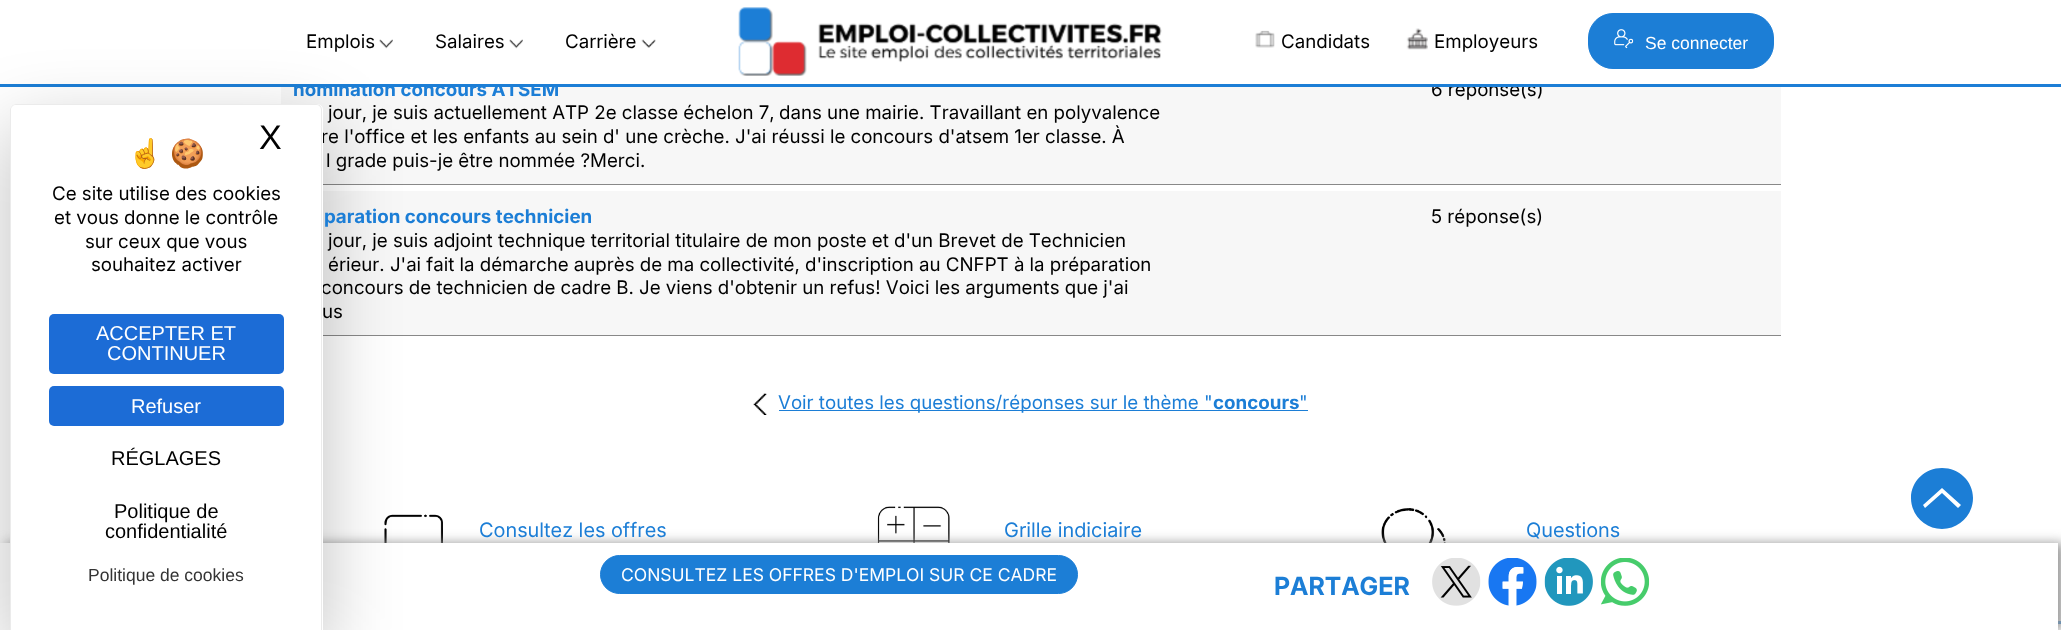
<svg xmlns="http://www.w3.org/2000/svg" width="2061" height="630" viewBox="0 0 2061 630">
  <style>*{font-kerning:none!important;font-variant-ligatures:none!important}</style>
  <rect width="100%" height="100%" fill="#fff"/>
  <image x="379" y="39" width="14" height="10" href="img/1.png"/>
  <image x="509" y="39" width="14" height="10" href="img/1.png"/>
  <image x="641" y="39" width="15" height="9" href="img/2.png"/>
  <image x="738" y="7" width="424" height="69" href="img/3.png"/>
  <image x="1255" y="30" width="20" height="18" href="img/4.png"/>
  <image x="1406" y="28" width="22" height="22" href="img/5.png"/>
  <rect x="1588.5" y="13.5" width="185" height="55" rx="24.5" fill="#1c7ed6" stroke="#1c7ed6"/>
  <image x="1614" y="29" width="20" height="20" href="img/6.png"/>
  <image x="384" y="514" width="59" height="29" href="img/12.png"/>
  <image x="877" y="506" width="73" height="37" href="img/13.png"/>
  <image x="1381" y="508" width="65" height="35" href="img/14.png"/>
  <path d="M2058 621h3v3H2058z" fill="#1c7ed6"/>
  <path d="M6 543h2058v87H6z" fill="#999" filter="blur(6px)"/>
  <path d="M0 543h2058v87H0z" fill="#fff"/>
  <rect x="600.5" y="555.5" width="477" height="38" rx="19" fill="#1c7ed6" stroke="#1c7ed6"/>
  <image x="1432" y="558" width="49" height="48" href="img/7.png"/>
  <image x="1488" y="558" width="49" height="48" href="img/8.png"/>
  <image x="1544" y="558" width="49" height="48" href="img/9.png"/>
  <image x="1600" y="558" width="50" height="48" href="img/10.png"/>
  <path d="M281 87h1500v97H281z" fill="#f7f7f7"/>
  <path d="M323 184h1458v1H323z" fill="#888"/>
  <path d="M323 191h1458v144H323z" fill="#f7f7f7"/>
  <path d="M323 335h1458v1H323z" fill="#888"/>
  <image x="753" y="393" width="14" height="22" href="img/11.png"/>
  <path d="M779 410h529v1H779z" fill="#1c7ed6"/>
  <path d="M1942 468C1925 468 1911 481 1911 498C1911 515 1925 529 1942 529C1959 529 1973 515 1973 498C1973 481 1959 468 1942 468ZM1958 508L1942 493L1925 508L1923 505L1942 488L1961 505Z" fill="#1c7ed6"/>
  <g font-family="Inter" font-size="18.75" fill="#000">
    <text x="306" y="48">Emplois</text>
    <text x="435" y="48">Salaires</text>
    <text x="565" y="48">Carrière</text>
    <text x="1281" y="48">Candidats</text>
    <text x="1434" y="48">Employeurs</text>
  </g>
  <text x="1645" y="49" font-family="Liberation Sans" font-size="17.5" fill="#fff">Se connecter</text>
  <text x="621" y="581" font-family="'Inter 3'" font-size="17.5" fill="#fff">CONSULTEZ LES OFFRES D'EMPLOI SUR CE CADRE</text>
  <text x="1274" y="595" font-family="'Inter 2'" font-size="25" font-weight="bold" fill="#1c7ed6">PARTAGER</text>
  <text x="293" y="96" font-family="Inter" font-size="18.75" font-weight="bold" fill="#1c7ed6">nomination concours ATSEM</text>
  <g font-family="Inter" font-size="18.75" fill="#000">
    <text x="328" y="119">jour, je suis actuellement ATP 2e classe échelon 7,</text>
    <text x="779" y="119">dans une mairie. Travaillant en polyvalence</text>
    <text x="321" y="143">re l'office et les enfants au sein d' une crèche. J'ai réussi le concours d'atsem 1er classe. À</text>
    <text x="326" y="167">l grade puis-je être nommée ?Merci.</text>
    <text x="1431" y="96">6 réponse(s)</text>
  </g>
  <path d="M0 84h2061v3H0z" fill="#1c7ed6"/>
  <path d="M334 81h1207v3H334z" fill="#fff"/>
  <rect x="10" y="129" width="313" height="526" rx="6" fill="#00000040" filter="blur(37.5px)"/>
  <text x="324" y="223" font-family="Inter" font-size="18.75" font-weight="bold" fill="#1c7ed6">paration concours technicien</text>
  <g font-family="Inter" font-size="18.75" fill="#000">
    <text x="328" y="247">jour, je suis adjoint technique territorial titulaire de mon poste et d'un Brevet de Technicien</text>
    <text x="328" y="271">érieur. J'ai fait la démarche auprès de ma collectivité, d'inscription au CNFPT à la préparation</text>
    <text x="321" y="294">concours de technicien de cadre B. Je viens d'obtenir un refus! Voici les arguments que j'ai</text>
  </g>
  <path d="M16 104H317C320.5 104 323 106.5 323 110V630H10V110C10 106.5 12.5 104 16 104Z" fill="#fff"/>
  <path d="M16 104H316C320 104 322 107 322 110V630H10V110C10 107 13 104 16 104ZM16 105H316C319 105 321 107 321 110V630H11V110C11 107 13 105 16 105Z" fill="#ebebeb" fill-rule="evenodd"/>
  <text x="259" y="149" font-family="Liberation Sans" font-size="34" fill="#000">X</text>
  <g font-family="Inter" font-size="18.75" fill="#000">
    <text x="91" y="271">souhaitez activer</text>
    <text x="85" y="248">sur ceux que vous</text>
    <text x="54" y="224">et vous donne le contrôle</text>
    <text x="52" y="200">Ce site utilise des cookies</text>
  </g>
  <text x="88" y="581" font-family="Liberation Sans" font-size="17.5" fill="#333">Politique de cookies</text>
  <g font-family="Liberation Sans" font-size="20" fill="#000">
    <text x="105" y="538">confidentialité</text>
    <text x="114" y="518">Politique de</text>
    <text x="111" y="465">RÉGLAGES</text>
  </g>
  <rect x="49" y="386" width="235" height="40" rx="5" fill="#1c6cd6"/>
  <text x="131" y="413" font-family="Liberation Sans" font-size="20" fill="#fff">Refuser</text>
  <rect x="49" y="314" width="235" height="60" rx="5" fill="#1c6cd6"/>
  <g font-family="Liberation Sans" font-size="20" fill="#fff">
    <text x="107" y="360">CONTINUER</text>
    <text x="96" y="340">ACCEPTER ET</text>
  </g>
  <g font-family="Noto Color Emoji" font-size="28" fill="#000">
    <text x="170" y="163">🍪</text>
    <text x="128" y="163">☝️</text>
  </g>
  <g font-family="Inter" font-size="18.75" fill="#000">
    <text x="322" y="318">us</text>
    <text x="1431" y="223">5 réponse(s)</text>
  </g>
  <text x="778" y="409" font-family="Inter" font-size="18.75" fill="#1c7ed6">Voir toutes les questions/réponses sur le thème "</text>
  <text x="1213" y="409" font-family="Inter" font-size="18.75" font-weight="bold" fill="#1c7ed6">concours</text>
  <text x="1299" y="409" font-family="Inter" font-size="18.75" fill="#1c7ed6">"</text>
  <g font-family="'Inter 2'" font-size="20" fill="#1c7ed6">
    <text x="479" y="537">Consultez les offres</text>
    <text x="1004" y="537">Grille indiciaire</text>
    <text x="1526" y="537">Questions</text>
  </g>
</svg>
